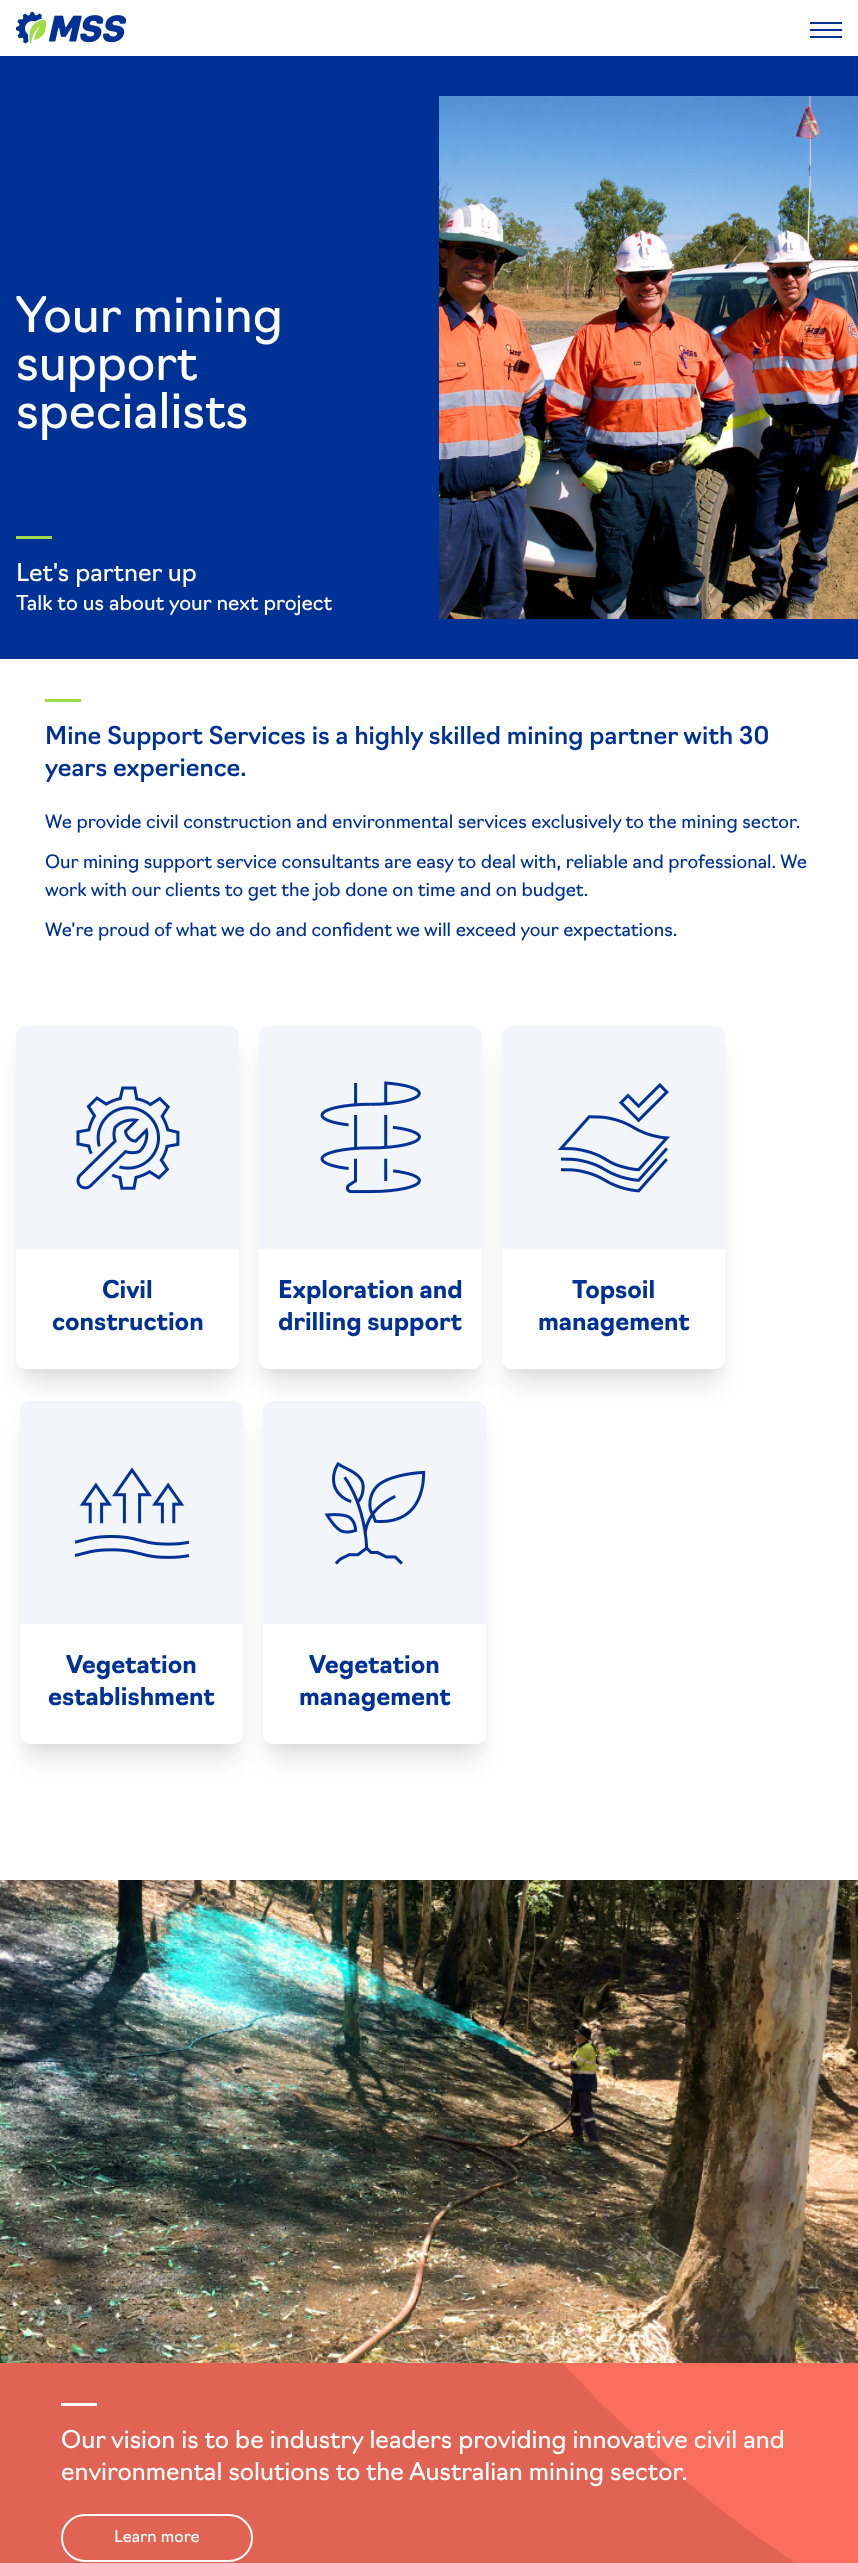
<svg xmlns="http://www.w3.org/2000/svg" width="858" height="2563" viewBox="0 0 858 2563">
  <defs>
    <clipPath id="clip1"><path d="M0 1880h858v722H0z"/></clipPath>
  </defs>
  <rect width="100%" height="100%" fill="#fff"/>
  <image x="16" y="12" width="110" height="32" href="img/1.png"/>
  <path d="M810 22h32v2H810z" fill="#003296"/>
  <path d="M810 29h32v2H810z" fill="#003296"/>
  <path d="M810 36h32v2H810z" fill="#003296"/>
  <path d="M0 56h858v603H0z" fill="#003296"/>
  <path d="M16 536h36v3H16z" fill="#a0dc47"/>
  <image x="439" y="96" width="419" height="523" href="img/2.png"/>
  <path d="M45 699h36v3H45z" fill="#a0dc47"/>
  <rect x="21" y="1041" width="213" height="333" rx="5" fill="#0000000a" filter="blur(5px)"/>
  <rect x="21" y="1051" width="213" height="333" rx="5" fill="#0000001a" filter="blur(12.5px)"/>
  <path d="M16 1249H239V1359C239 1364.5 234.5 1369 229 1369H26C20.5 1369 16 1364.5 16 1359Z" fill="#fff"/>
  <rect x="264" y="1051" width="213" height="333" rx="5" fill="#0000001a" filter="blur(12.5px)"/>
  <path d="M26 1026H229C234.5 1026 239 1030.5 239 1036V1249H16V1036C16 1030.5 20.5 1026 26 1026Z" fill="#f2f5fa"/>
  <image x="76" y="1086" width="104" height="104" href="img/3.png"/>
  <rect x="264" y="1041" width="213" height="333" rx="5" fill="#0000000a" filter="blur(5px)"/>
  <path d="M259 1249H482V1359C482 1364.5 477.5 1369 472 1369H269C263.5 1369 259 1364.5 259 1359Z" fill="#fff"/>
  <rect x="507" y="1051" width="213" height="333" rx="5" fill="#0000001a" filter="blur(12.5px)"/>
  <path d="M269 1026H472C477.5 1026 482 1030.5 482 1036V1249H259V1036C259 1030.5 263.5 1026 269 1026Z" fill="#f2f5fa"/>
  <image x="320" y="1081" width="101" height="113" href="img/4.png"/>
  <rect x="507" y="1041" width="213" height="333" rx="5" fill="#0000000a" filter="blur(5px)"/>
  <path d="M512 1026H715C720.5 1026 725 1030.5 725 1036V1249H502V1036C502 1030.5 506.5 1026 512 1026Z" fill="#f2f5fa"/>
  <image x="557" y="1083" width="113" height="110" href="img/5.png"/>
  <path d="M502 1249H725V1359C725 1364.5 720.5 1369 715 1369H512C506.5 1369 502 1364.5 502 1359Z" fill="#fff"/>
  <rect x="25" y="1416" width="213" height="333" rx="5" fill="#0000000a" filter="blur(5px)"/>
  <rect x="25" y="1426" width="213" height="333" rx="5" fill="#0000001a" filter="blur(12.5px)"/>
  <path d="M20 1624H243V1734C243 1739.5 238.5 1744 233 1744H30C24.5 1744 20 1739.5 20 1734Z" fill="#fff"/>
  <rect x="268" y="1426" width="213" height="333" rx="5" fill="#0000001a" filter="blur(12.5px)"/>
  <path d="M30 1401H233C238.5 1401 243 1405.5 243 1411V1624H20V1411C20 1405.5 24.5 1401 30 1401Z" fill="#f2f5fa"/>
  <image x="74" y="1467" width="116" height="92" href="img/6.png"/>
  <rect x="268" y="1416" width="213" height="333" rx="5" fill="#0000000a" filter="blur(5px)"/>
  <path d="M273 1401H476C481.5 1401 486 1405.5 486 1411V1624H263V1411C263 1405.5 267.5 1401 273 1401Z" fill="#f2f5fa"/>
  <image x="324" y="1462" width="102" height="103" href="img/7.png"/>
  <path d="M263 1624H486V1734C486 1739.5 481.5 1744 476 1744H273C267.5 1744 263 1739.5 263 1734Z" fill="#fff"/>
  <path d="M562 2363h296v200H562z" fill="#fa6e5d"/>
  <g clip-path="url(#clip1)">
    <path d="M191 1695H0V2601H858C551 2430 276 2048 191 1695Z" fill="#e06353" fill-rule="evenodd"/>
  </g>
  <image x="0" y="1880" width="858" height="483" href="img/8.png"/>
  <path d="M61 2403h36v3H61z" fill="#fff"/>
  <rect x="62" y="2515" width="190" height="46" rx="23" fill="none" stroke="#fff" stroke-width="2"/>
  <g font-family="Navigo" font-size="48" fill="#fff">
    <text x="16" y="332">Your mining</text>
    <text x="16" y="380">support</text>
    <text x="16" y="428">specialists</text>
  </g>
  <text x="16" y="581" font-family="Navigo" font-size="24" fill="#fff">Let's partner up</text>
  <text x="16" y="610" font-family="Navigo" font-size="20" fill="#fff">Talk to us about your next project</text>
  <g font-family="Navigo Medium" font-size="24" font-weight="500" fill="#003296">
    <text x="45" y="744">Mine Support Services is a highly skilled mining partner with 30</text>
    <text x="45" y="776">years experience.</text>
  </g>
  <g font-family="Navigo" font-size="18" fill="#003296">
    <text x="45" y="828">We provide civil construction and environmental services exclusively to the mining sector.</text>
    <text x="45" y="868">Our mining support service consultants are easy to deal with, reliable and professional. We</text>
    <text x="45" y="896">work with our clients to get the job done on time and on budget.</text>
    <text x="45" y="936">We're proud of what we do and confident we will exceed your expectations.</text>
  </g>
  <g font-family="Navigo" font-size="24" font-weight="bold" fill="#003296">
    <text x="102" y="1298">Civil</text>
    <text x="52" y="1330">construction</text>
    <text x="278" y="1298">Exploration and</text>
    <text x="278" y="1330">drilling support</text>
    <text x="572" y="1298">Topsoil</text>
    <text x="538" y="1330">management</text>
    <text x="66" y="1673">Vegetation</text>
    <text x="48" y="1705">establishment</text>
    <text x="309" y="1673">Vegetation</text>
    <text x="299" y="1705">management</text>
  </g>
  <g font-family="Navigo" font-size="24" fill="#fff">
    <text x="61" y="2448">Our vision is to be industry leaders providing innovative civil and</text>
    <text x="61" y="2480">environmental solutions to the Australian mining sector.</text>
  </g>
  <text x="114" y="2542" font-family="Navigo" font-size="16" fill="#fff">Learn more</text>
</svg>
